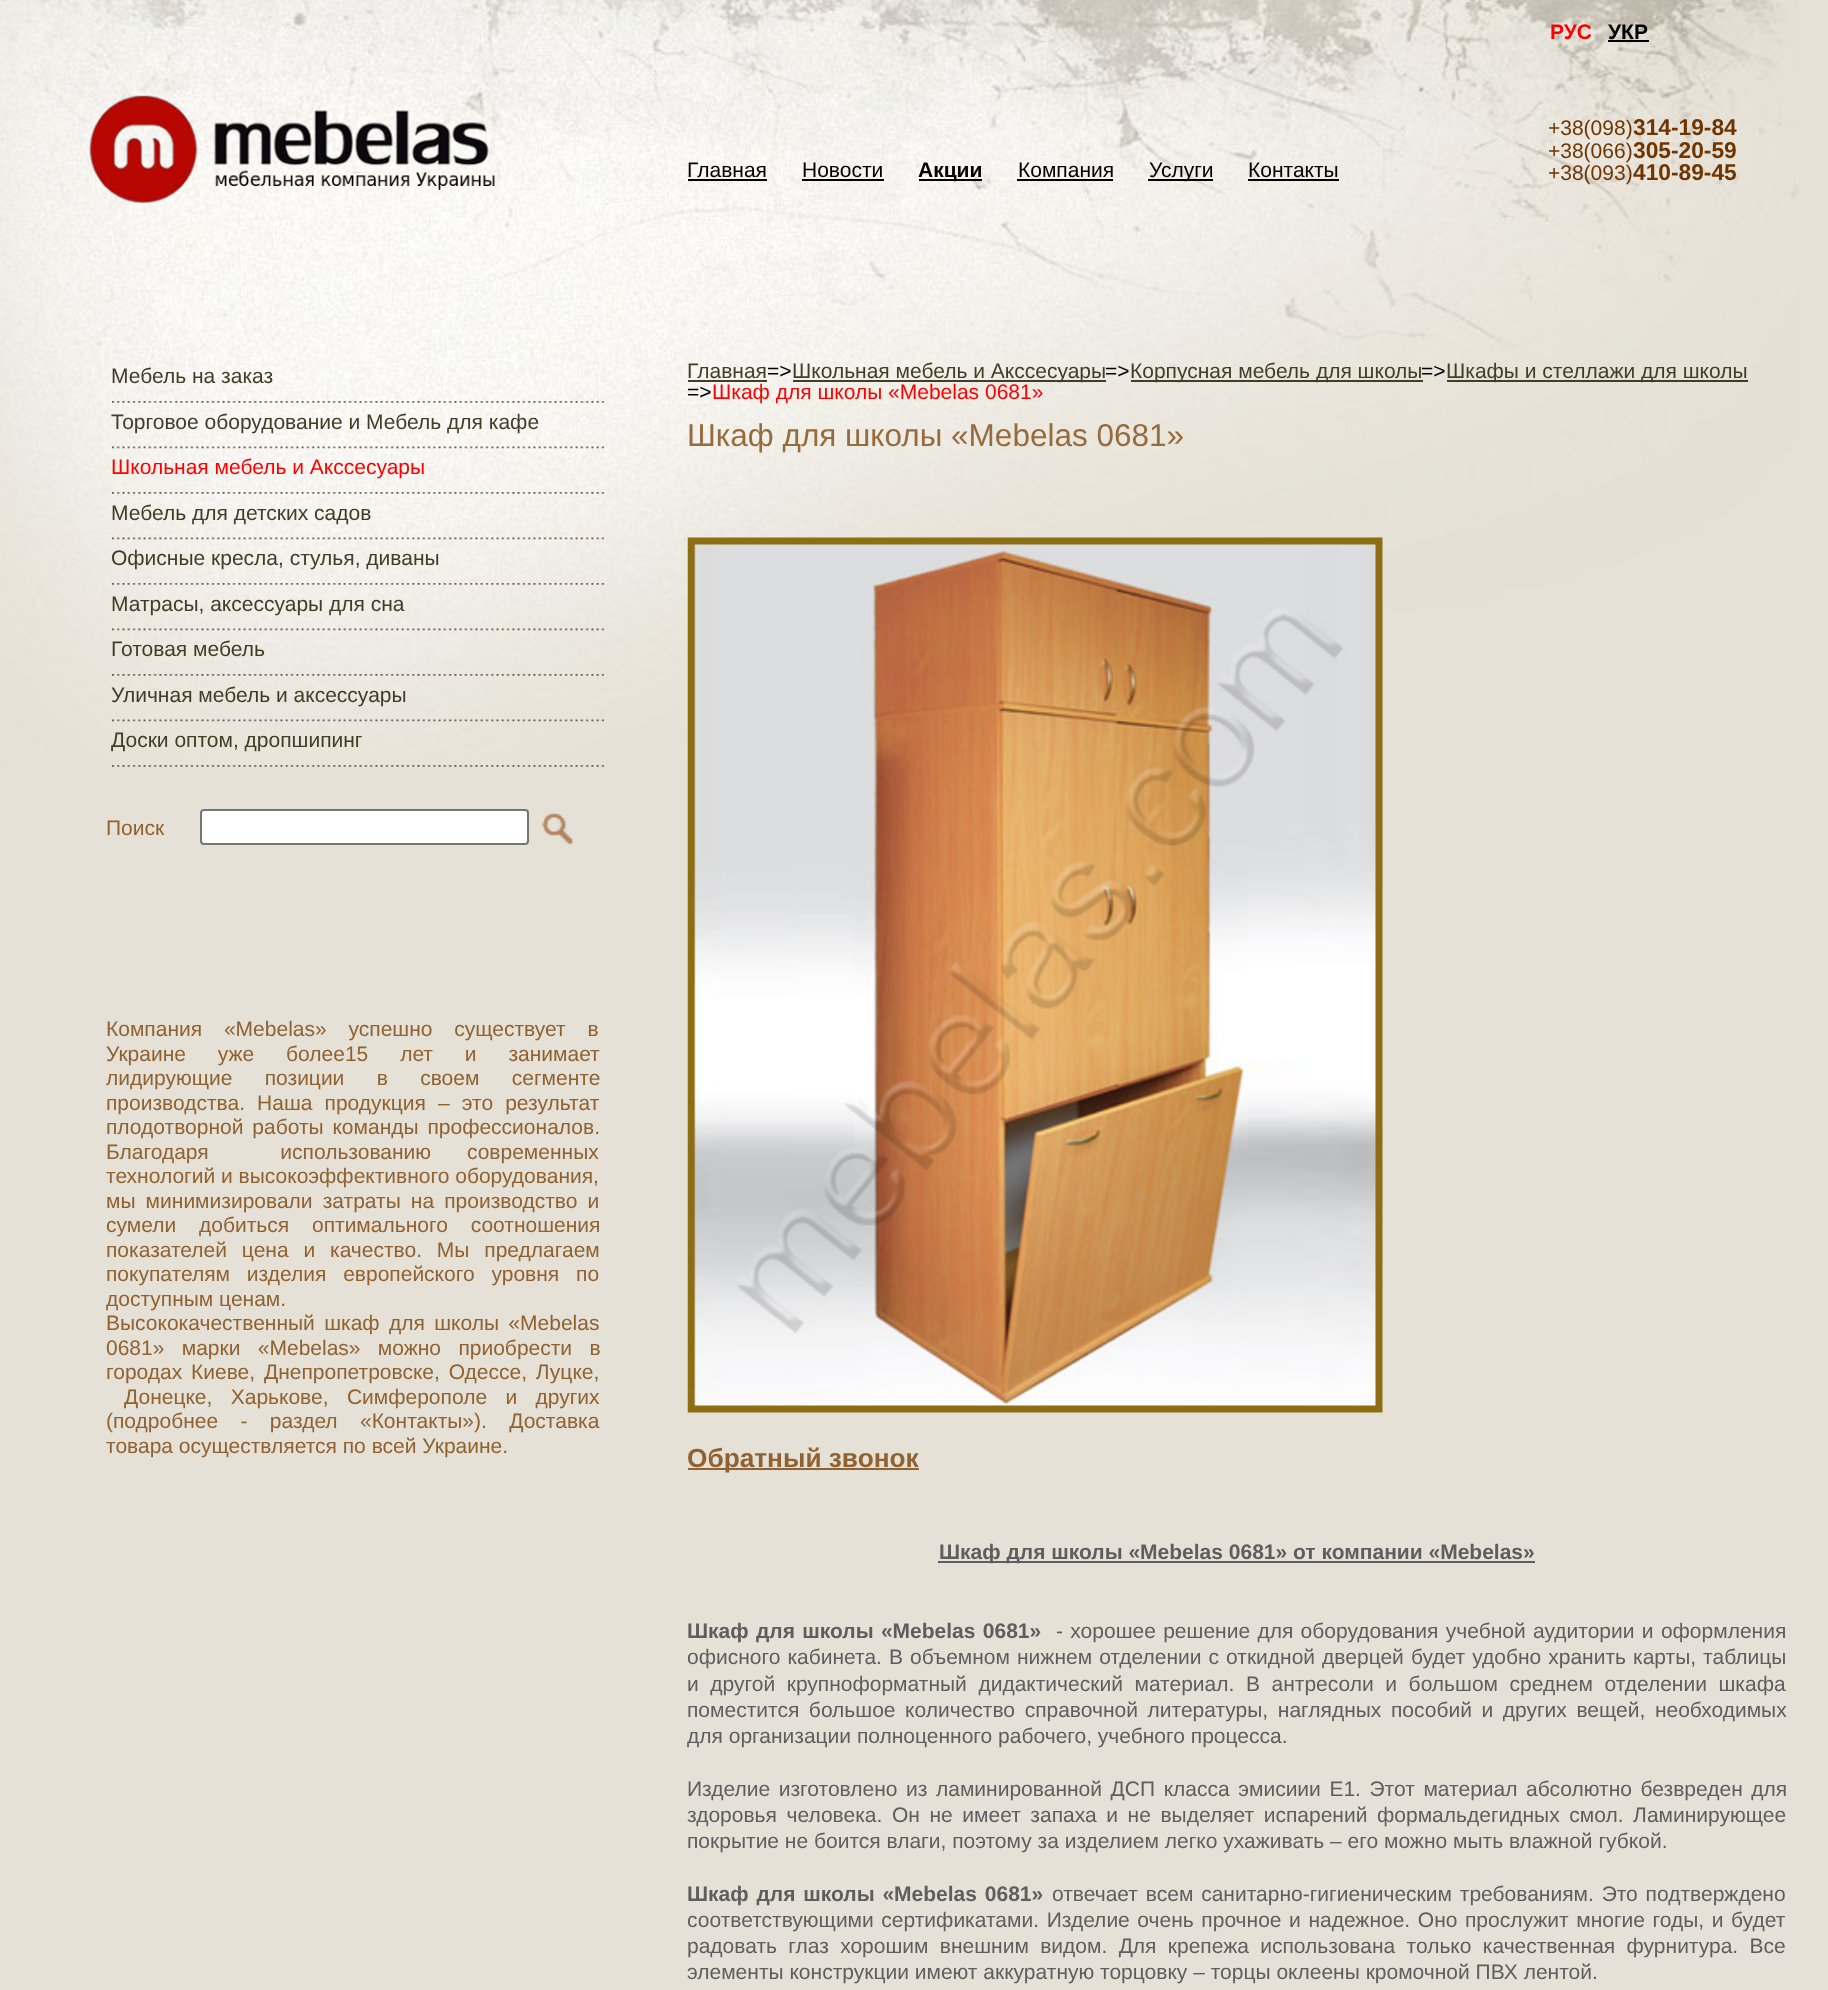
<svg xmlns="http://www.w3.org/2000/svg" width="1828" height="1990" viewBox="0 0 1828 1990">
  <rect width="100%" height="100%" fill="#e5e1d6"/>
  <image x="0" y="0" width="1799" height="766" href="img/1.png"/>
  <path d="M1608 40h41v2H1608z" fill="#000"/>
  <image x="89" y="95" width="407" height="109" href="img/2.png"/>
  <path d="M688 179h79v2H688z" fill="#000"/>
  <path d="M802 179h82v2H802z" fill="#000"/>
  <path d="M919 179h63v2H919z" fill="#000"/>
  <path d="M1017 179h96v2H1017z" fill="#000"/>
  <path d="M1148 179h65v2H1148z" fill="#000"/>
  <path d="M1248 179h91v2H1248z" fill="#000"/>
  <image x="112" y="401" width="492" height="2" href="img/3.png"/>
  <image x="112" y="446" width="492" height="3" href="img/4.png"/>
  <image x="112" y="492" width="492" height="2" href="img/5.png"/>
  <image x="112" y="537" width="492" height="3" href="img/6.png"/>
  <image x="112" y="583" width="492" height="2" href="img/7.png"/>
  <image x="112" y="628" width="492" height="3" href="img/8.png"/>
  <image x="112" y="674" width="492" height="2" href="img/9.png"/>
  <image x="112" y="719" width="492" height="3" href="img/10.png"/>
  <image x="112" y="765" width="492" height="2" href="img/11.png"/>
  <rect x="201" y="810" width="327" height="34" rx="3" fill="#fff" stroke="#767676" stroke-width="2"/>
  <image x="542" y="812" width="31" height="33" href="img/12.png"/>
  <path d="M688 380h79v2H688z" fill="#433d28"/>
  <path d="M793 380h313v2H793z" fill="#433d28"/>
  <path d="M1131 380h292v2H1131z" fill="#433d28"/>
  <path d="M1447 380h301v2H1447z" fill="#433d28"/>
  <image x="687" y="537" width="696" height="876" href="img/13.png"/>
  <path d="M688 1468h231v2H688z" fill="#906231"/>
  <path d="M938 1561h597v2H938z" fill="#5e5e5e"/>
  <text x="1550" y="39" font-family="Liberation Sans" font-size="21" font-weight="bold" fill="#f00">РУС</text>
  <text x="1608" y="39" font-family="Liberation Sans" font-size="21" font-weight="bold" fill="#000">УКР</text>
  <g font-family="Liberation Sans" font-size="21" fill="#000">
    <text x="687" y="177">Главная</text>
    <text x="802" y="177">Новости</text>
  </g>
  <text x="918" y="177" font-family="Liberation Sans" font-size="21" font-weight="bold" fill="#000">Акции</text>
  <g font-family="Liberation Sans" font-size="21" fill="#000">
    <text x="1018" y="177">Компания</text>
    <text x="1149" y="177">Услуги</text>
    <text x="1248" y="177">Контакты</text>
  </g>
  <text x="1548" y="135" font-family="Liberation Sans" font-size="21" fill="#6f3400">+38(098)</text>
  <text x="1633" y="135" font-family="Liberation Sans" font-size="22.75" font-weight="bold" fill="#6f3400">314-19-84</text>
  <text x="1548" y="158" font-family="Liberation Sans" font-size="21" fill="#6f3400">+38(066)</text>
  <text x="1633" y="158" font-family="Liberation Sans" font-size="22.75" font-weight="bold" fill="#6f3400">305-20-59</text>
  <text x="1548" y="180" font-family="Liberation Sans" font-size="21" fill="#6f3400">+38(093)</text>
  <text x="1633" y="180" font-family="Liberation Sans" font-size="22.75" font-weight="bold" fill="#6f3400">410-89-45</text>
  <g font-family="Liberation Sans" font-size="21" fill="#433d28">
    <text x="111" y="383">Мебель на заказ</text>
    <text x="111" y="429">Торговое оборудование и Мебель для кафе</text>
  </g>
  <text x="111" y="474" font-family="Liberation Sans" font-size="21" fill="#f00">Школьная мебель и Акссесуары</text>
  <g font-family="Liberation Sans" font-size="21" fill="#433d28">
    <text x="111" y="520">Мебель для детских садов</text>
    <text x="111" y="565">Офисные кресла, стулья, диваны</text>
    <text x="111" y="611">Матраcы, аксессуары для сна</text>
    <text x="111" y="656">Готовая мебель</text>
    <text x="111" y="702">Уличная мебель и аксессуары</text>
    <text x="111" y="747">Доски оптом, дропшипинг</text>
  </g>
  <g font-family="Liberation Sans" font-size="21" fill="#906231">
    <text x="106" y="835">Поиск</text>
    <text x="106" y="1036" word-spacing="16">Компания «Mebelas» успешно существует в</text>
    <text x="106" y="1061" word-spacing="26">Украине уже более15 лет и занимает</text>
    <text x="106" y="1085" word-spacing="26.5">лидирующие позиции в своем сегменте</text>
    <text x="106" y="1110" word-spacing="6.25">производства. Наша продукция – это результат</text>
    <text x="106" y="1134" word-spacing="3">плодотворной работы команды профессионалов.</text>
    <text x="106" y="1159" word-spacing="30" xml:space="preserve">Благодаря  использованию современных</text>
    <text x="106" y="1183">технологий и высокоэффективного оборудования,</text>
    <text x="106" y="1208" word-spacing="4.25">мы минимизировали затраты на производство и</text>
    <text x="106" y="1232" word-spacing="17">сумели добиться оптимального соотношения</text>
    <text x="106" y="1257" word-spacing="9">показателей цена и качество. Мы предлагаем</text>
    <text x="106" y="1281" word-spacing="11">покупателям изделия европейского уровня по</text>
    <text x="106" y="1306">доступным ценам.</text>
    <text x="106" y="1330" word-spacing="3.5">Высококачественный шкаф для школы «Mebelas</text>
    <text x="106" y="1355" word-spacing="11.5">0681» марки «Mebelas» можно приобрести в</text>
    <text x="106" y="1379" word-spacing="3">городах Киеве, Днепропетровске, Одессе, Луцке,</text>
    <text x="124" y="1404" word-spacing="12.5">Донецке, Харькове, Симферополе и других</text>
    <text x="106" y="1428" word-spacing="16.5">(подробнее - раздел «Контакты»). Доставка</text>
    <text x="106" y="1453">товара осуществляется по всей Украине.</text>
  </g>
  <text x="687" y="378" font-family="Liberation Sans" font-size="21" fill="#433d28">Главная</text>
  <text x="767" y="378" font-family="Liberation Sans" font-size="21" fill="#000">=&gt;</text>
  <text x="792" y="378" font-family="Liberation Sans" font-size="21" fill="#433d28">Школьная мебель и Акссесуары</text>
  <text x="1105" y="378" font-family="Liberation Sans" font-size="21" fill="#000">=&gt;</text>
  <text x="1130" y="378" font-family="Liberation Sans" font-size="21" fill="#433d28">Корпусная мебель для школы</text>
  <text x="1421" y="378" font-family="Liberation Sans" font-size="21" fill="#000">=&gt;</text>
  <text x="1446" y="378" font-family="Liberation Sans" font-size="21" fill="#433d28">Шкафы и стеллажи для школы</text>
  <text x="687" y="399" font-family="Liberation Sans" font-size="21" fill="#000">=&gt;</text>
  <text x="712" y="399" font-family="Liberation Sans" font-size="21" fill="#f00">Шкаф для школы «Mebelas 0681»</text>
  <text x="687" y="446" font-family="Liberation Sans" font-size="31.5" fill="#966b3d">Шкаф для школы «Mebelas 0681»</text>
  <text x="687" y="1467" font-family="Liberation Sans" font-size="26.25" font-weight="bold" fill="#906231">Обратный звонок</text>
  <g font-family="Liberation Sans" font-size="21" font-weight="bold" fill="#5e5e5e">
    <text x="939" y="1559">Шкаф для школы «Mebelas 0681» от компании «Mebelas»</text>
    <text x="687" y="1638" word-spacing="1.5">Шкаф для школы «Mebelas 0681»</text>
  </g>
  <g font-family="Liberation Sans" font-size="21" fill="#5e5e5e">
    <text x="1056" y="1638" word-spacing="1.5">- хорошее решение для оборудования учебной аудитории и оформления</text>
    <text x="687" y="1664" word-spacing="1.2">офисного кабинета. В объемном нижнем отделении с откидной дверцей будет удобно хранить карты, таблицы</text>
    <text x="687" y="1691" word-spacing="5.75">и другой крупноформатный дидактический материал. В антресоли и большом среднем отделении шкафа</text>
    <text x="687" y="1717" word-spacing="3.75">поместится большое количество справочной литературы, наглядных пособий и других вещей, необходимых</text>
    <text x="687" y="1743">для организации полноценного рабочего, учебного процесса.</text>
    <text x="687" y="1796" word-spacing="2.75">Изделие изготовлено из ламинированной ДСП класса эмисиии Е1. Этот материал абсолютно безвреден для</text>
    <text x="687" y="1822" word-spacing="3.75">здоровья человека. Он не имеет запаха и не выделяет испарений формальдегидных смол. Ламинирующее</text>
    <text x="687" y="1848">покрытие не боится влаги, поэтому за изделием легко ухаживать – его можно мыть влажной губкой.</text>
  </g>
  <text x="687" y="1901" word-spacing="2" font-family="Liberation Sans" font-size="21" font-weight="bold" fill="#5e5e5e">Шкаф для школы «Mebelas 0681»</text>
  <g font-family="Liberation Sans" font-size="21" fill="#5e5e5e">
    <text x="1052" y="1901" word-spacing="2">отвечает всем санитарно-гигиеническим требованиям. Это подтверждено</text>
    <text x="687" y="1927" word-spacing="1.75">соответствующими сертификатами. Изделие очень прочное и надежное. Оно прослужит многие годы, и будет</text>
    <text x="687" y="1953" word-spacing="5.5">радовать глаз хорошим внешним видом. Для крепежа использована только качественная фурнитура. Все</text>
    <text x="687" y="1979">элементы конструкции имеют аккуратную торцовку – торцы оклеены кромочной ПВХ лентой.</text>
  </g>
</svg>
